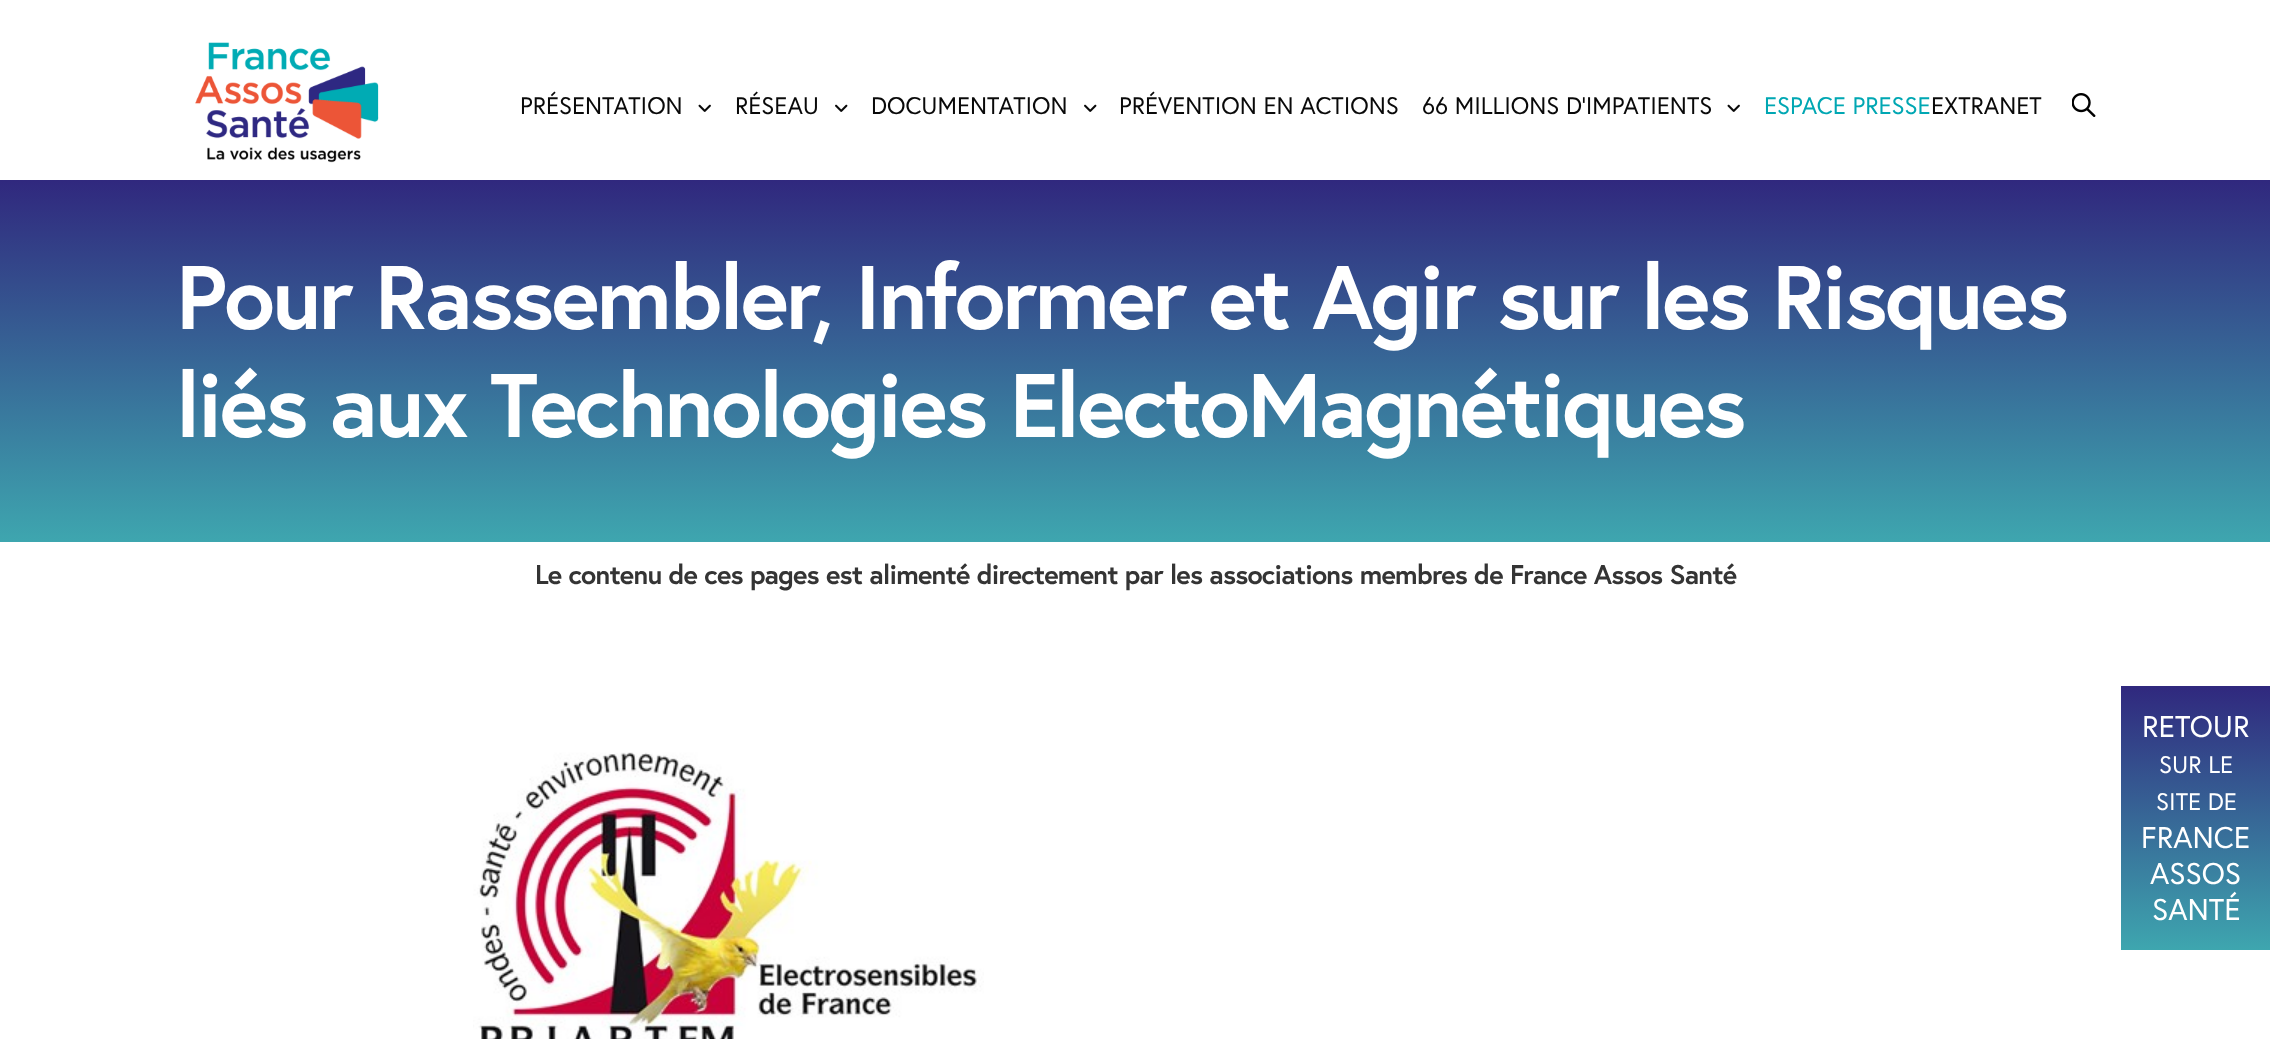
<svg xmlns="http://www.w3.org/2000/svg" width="2270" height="1039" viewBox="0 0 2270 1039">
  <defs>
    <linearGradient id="g1" gradientUnits="userSpaceOnUse" x1="1136" y1="180" x2="1136" y2="542"><stop offset="0" stop-color="#30287e"/><stop offset="1" stop-color="#3ea6af"/></linearGradient>
    <linearGradient id="g2" gradientUnits="userSpaceOnUse" x1="2196" y1="686" x2="2196" y2="950"><stop offset="0" stop-color="#30287e"/><stop offset="1" stop-color="#3ea6af"/></linearGradient>
  </defs>
  <rect width="100%" height="100%" fill="#fff"/>
  <image x="195" y="42" width="184" height="121" href="img/1.png"/>
  <image x="698" y="104" width="13" height="8" href="img/2.png"/>
  <image x="835" y="104" width="13" height="8" href="img/3.png"/>
  <image x="1084" y="104" width="13" height="8" href="img/3.png"/>
  <image x="1727" y="104" width="13" height="8" href="img/2.png"/>
  <image x="2072" y="93" width="24" height="24" href="img/4.png"/>
  <path d="M0 180h2270v362H0z" fill="url(#g1)"/>
  <image x="473" y="752" width="511" height="287" href="img/5.png"/>
  <path d="M2121 686h149v264H2121z" fill="url(#g2)"/>
  <g font-family="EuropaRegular" font-size="24" fill="#090909">
    <text x="520" y="114">PRÉSENTATION</text>
    <text x="735" y="114">RÉSEAU</text>
    <text x="871" y="114">DOCUMENTATION</text>
    <text x="1119" y="114">PRÉVENTION EN ACTIONS</text>
    <text x="1422" y="114">66 MILLIONS D’IMPATIENTS</text>
  </g>
  <text x="1764" y="114" font-family="EuropaRegular" font-size="24" fill="#00a7b3">ESPACE PRESSE</text>
  <text x="1931" y="114" font-family="EuropaRegular" font-size="24" fill="#090909">EXTRANET</text>
  <g font-family="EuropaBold" font-size="90" font-weight="bold" letter-spacing="-2.7" fill="#fff">
    <text x="176" y="329">Pour Rassembler, Informer et Agir sur les Risques</text>
    <text x="176" y="437">liés aux Technologies ElectoMagnétiques</text>
  </g>
  <text x="535" y="584" font-family="EuropaBold" font-size="27" font-weight="bold" letter-spacing="-0.8" fill="#343434">Le contenu de ces pages est alimenté directement par les associations membres de France Assos Santé</text>
  <text x="2142" y="737" font-family="EuropaRegular" font-size="30" fill="#fff">RETOUR</text>
  <g font-family="EuropaRegular" font-size="24" fill="#fff">
    <text x="2159" y="773">SUR LE</text>
    <text x="2156" y="810">SITE DE</text>
  </g>
  <g font-family="EuropaRegular" font-size="30" fill="#fff">
    <text x="2141" y="848">FRANCE</text>
    <text x="2150" y="884">ASSOS</text>
    <text x="2152" y="920">SANTÉ</text>
  </g>
</svg>
